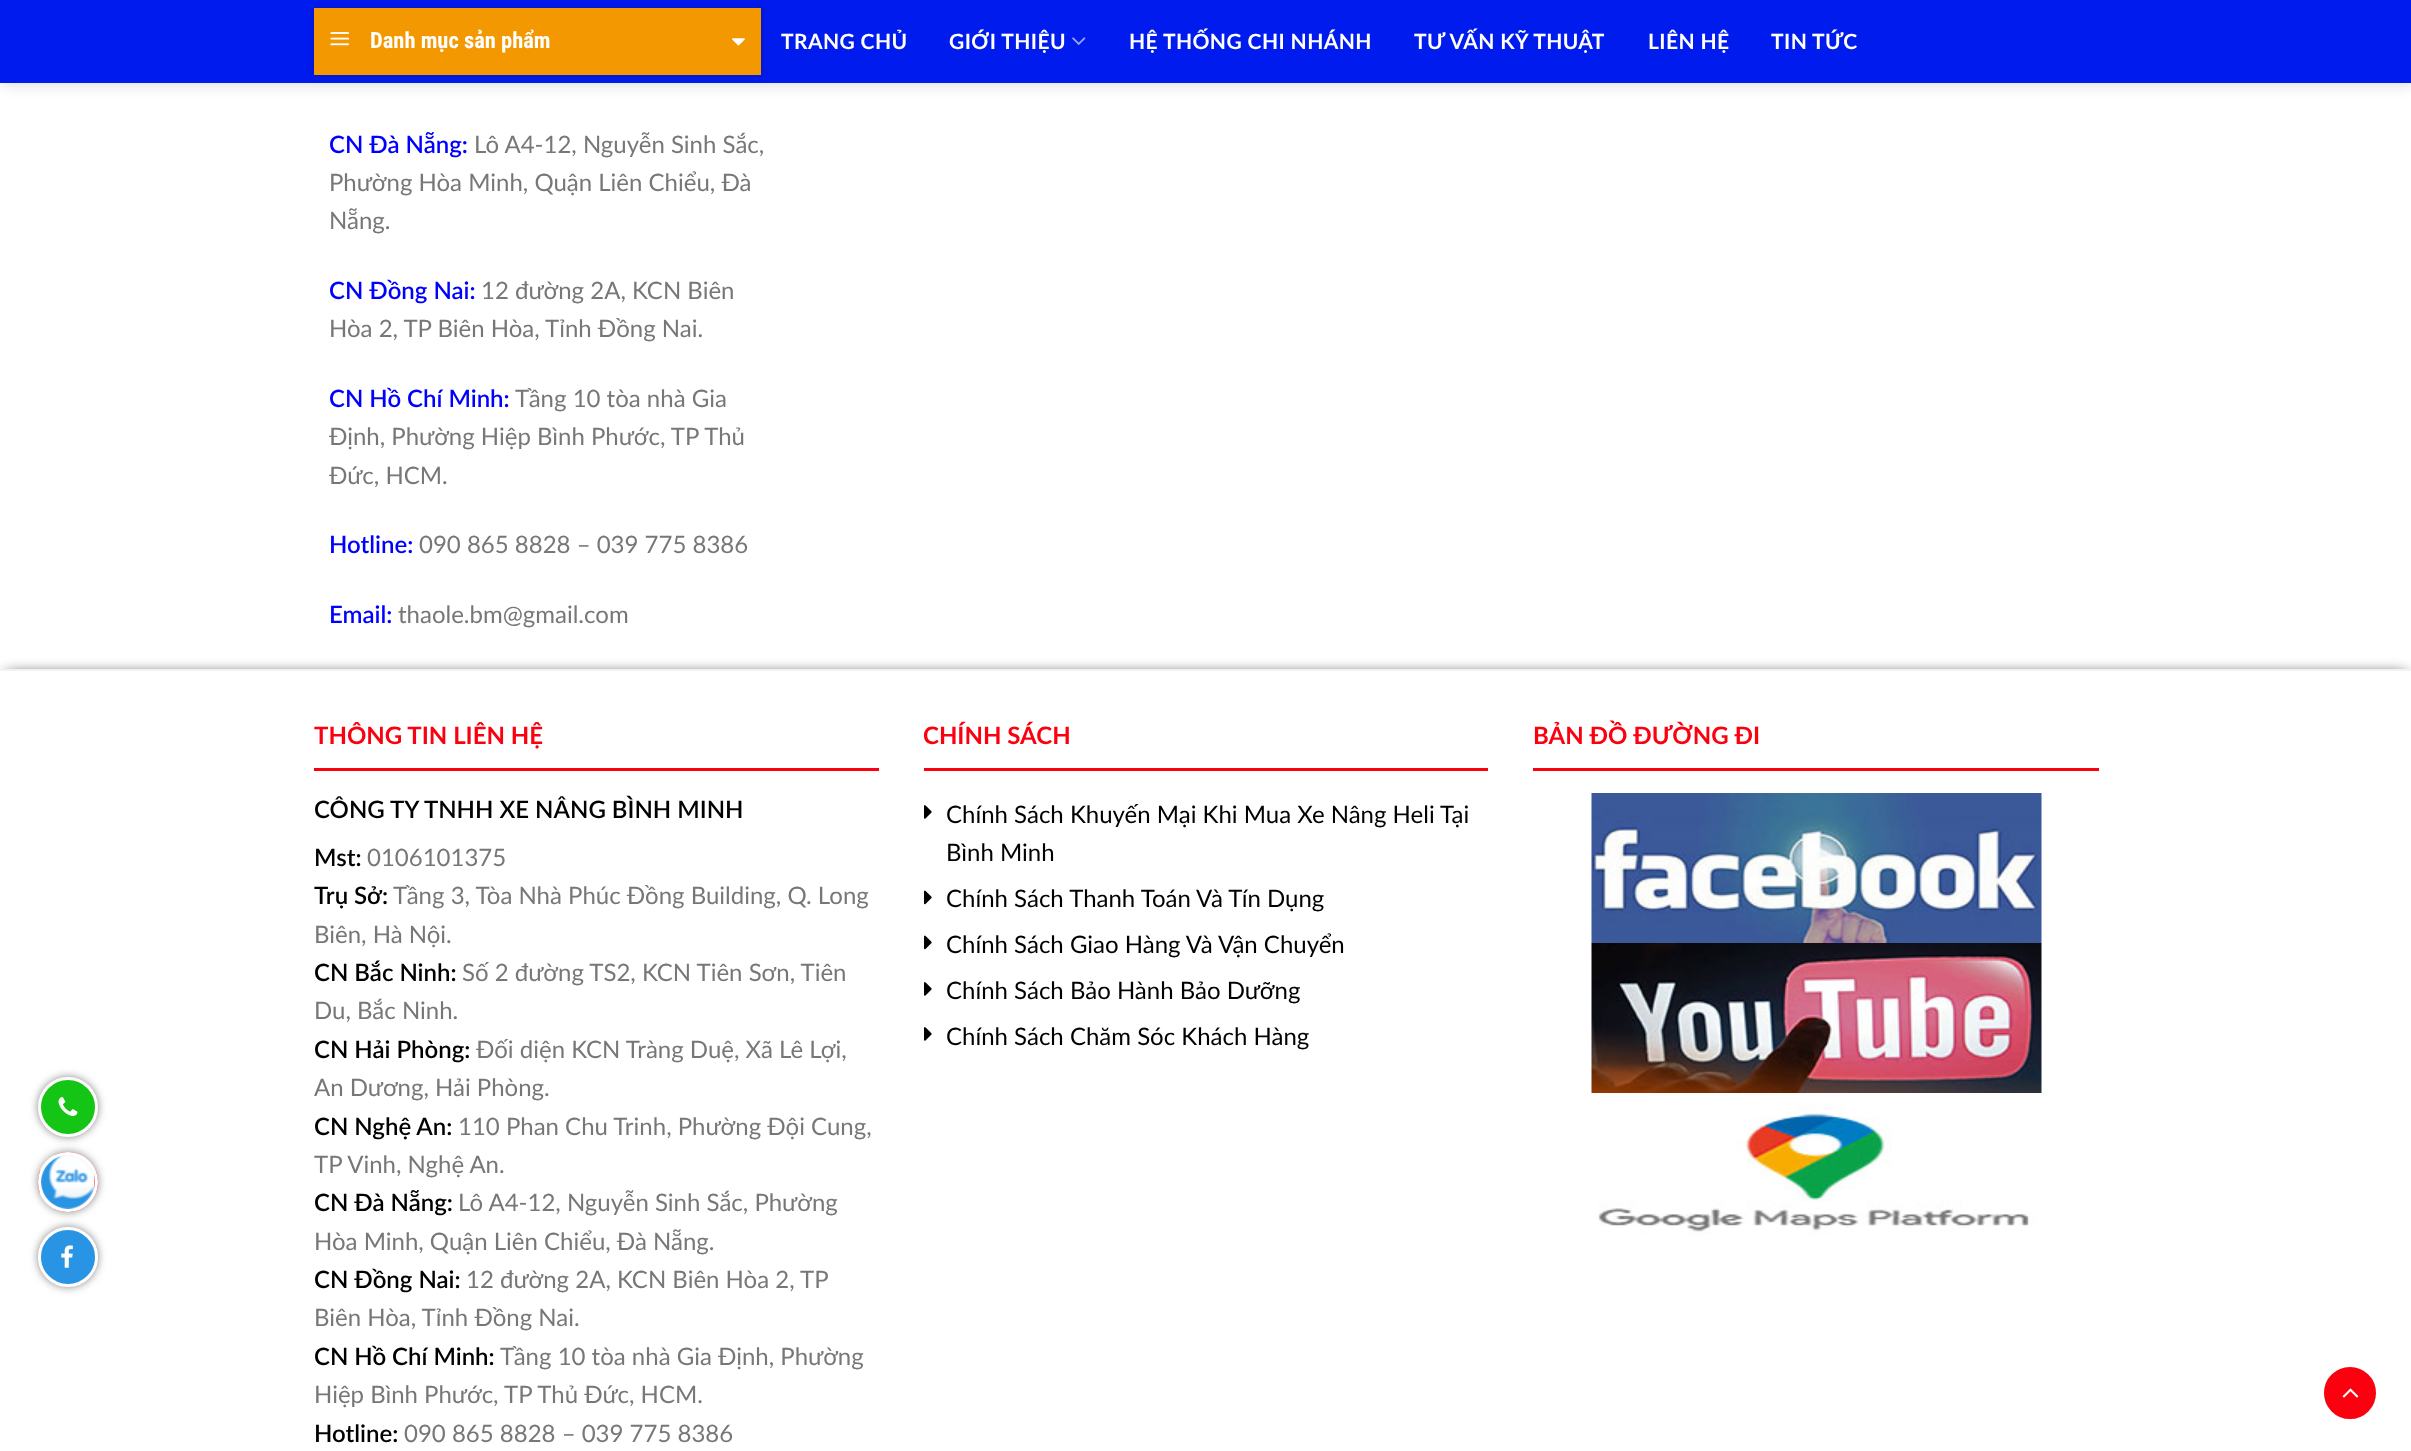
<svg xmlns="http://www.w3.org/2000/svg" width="2411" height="1451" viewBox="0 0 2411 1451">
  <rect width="100%" height="100%" fill="#fff"/>
  <path d="M2 2h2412v82H2z" fill="#00000026" filter="blur(7.5px)"/>
  <path d="M0 0h2411v83H0z" fill="#001bed"/>
  <path d="M314 8h447v67H314z" fill="#00000033" filter="blur(3px)"/>
  <path d="M314 8h447v67H314z" fill="#f39801"/>
  <image x="330" y="32" width="20" height="14" href="img/1.png"/>
  <image x="732" y="38" width="13" height="8" href="img/2.png"/>
  <image x="1072" y="37" width="14" height="8" href="img/3.png"/>
  <path d="M6 675h2400v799H6z" fill="#000" filter="blur(7.5px)"/>
  <path d="M0 671h2411v780H0z" fill="#fff"/>
  <path d="M0 669h2411v2H0z" fill="#f2f2f2"/>
  <rect x="38" y="1077" width="60" height="60" rx="30" fill="#888" filter="blur(4px)"/>
  <circle cx="68" cy="1107" r="28.5" fill="#15c515" stroke="#fff" stroke-width="3"/>
  <image x="58" y="1097" width="20" height="19" href="img/4.png"/>
  <rect x="38" y="1152" width="60" height="60" rx="30" fill="#888" filter="blur(4px)"/>
  <circle cx="68" cy="1182" r="30" fill="#ef0303"/>
  <image x="40" y="1155" width="55" height="54" href="img/5.png"/>
  <circle cx="68" cy="1182" r="28.5" fill="none" stroke="#fff" stroke-width="3"/>
  <rect x="38" y="1227" width="60" height="60" rx="30" fill="#888" filter="blur(4px)"/>
  <circle cx="68" cy="1257" r="28.5" fill="#2994e3" stroke="#fff" stroke-width="3"/>
  <image x="61" y="1245" width="12" height="23" href="img/6.png"/>
  <path d="M314 768h565v3H314z" fill="#fb000f"/>
  <path d="M924 768h564v3H924z" fill="#fb000f"/>
  <image x="924" y="805" width="8" height="14" href="img/7.png"/>
  <image x="924" y="890" width="8" height="15" href="img/8.png"/>
  <image x="924" y="935" width="8" height="15" href="img/8.png"/>
  <image x="924" y="982" width="8" height="14" href="img/7.png"/>
  <image x="924" y="1027" width="8" height="14" href="img/7.png"/>
  <path d="M1533 768h566v3H1533z" fill="#fb000f"/>
  <image x="1591" y="793" width="451" height="150" href="img/9.png"/>
  <image x="1591" y="943" width="451" height="150" href="img/10.png"/>
  <image x="1598" y="1105" width="437" height="130" href="img/11.png"/>
  <circle cx="2350" cy="1393" r="27.5" fill="#fb000f" stroke="#fff" stroke-width="3"/>
  <image x="2342" y="1388" width="17" height="10" href="img/12.png"/>
  <text x="370" y="48" font-family="Roboto Condensed" font-size="22.5" font-weight="bold" fill="#fff">Danh mục sản phẩm</text>
  <g font-family="Lato" font-size="21" font-weight="bold" letter-spacing="0.4" fill="#fff">
    <text x="781" y="49">TRANG CHỦ</text>
    <text x="949" y="49">GIỚI THIỆU</text>
    <text x="1129" y="49">HỆ THỐNG CHI NHÁNH</text>
    <text x="1414" y="49">TƯ VẤN KỸ THUẬT</text>
    <text x="1648" y="49">LIÊN HỆ</text>
    <text x="1771" y="49">TIN TỨC</text>
  </g>
  <text x="329" y="153" font-family="Lato" font-size="24" font-weight="600" fill="#00f">CN Đà Nẵng:</text>
  <g font-family="Lato" font-size="24" fill="#777">
    <text x="474" y="153">Lô A4-12, Nguyễn Sinh Sắc,</text>
    <text x="329" y="191">Phường Hòa Minh, Quận Liên Chiểu, Đà</text>
    <text x="329" y="229">Nẵng.</text>
  </g>
  <text x="329" y="299" font-family="Lato" font-size="24" font-weight="600" fill="#00f">CN Đồng Nai:</text>
  <g font-family="Lato" font-size="24" fill="#777">
    <text x="481" y="299">12 đường 2A, KCN Biên</text>
    <text x="329" y="337">Hòa 2, TP Biên Hòa, Tỉnh Đồng Nai.</text>
  </g>
  <text x="329" y="407" font-family="Lato" font-size="24" font-weight="600" fill="#00f">CN Hồ Chí Minh:</text>
  <g font-family="Lato" font-size="24" fill="#777">
    <text x="515" y="407">Tầng 10 tòa nhà Gia</text>
    <text x="329" y="445">Định, Phường Hiệp Bình Phước, TP Thủ</text>
    <text x="329" y="484">Đức, HCM.</text>
  </g>
  <text x="329" y="553" font-family="Lato" font-size="24" font-weight="600" fill="#00f">Hotline:</text>
  <text x="419" y="553" font-family="Lato" font-size="24" fill="#777">090 865 8828 – 039 775 8386</text>
  <text x="329" y="623" font-family="Lato" font-size="24" font-weight="600" fill="#00f">Email:</text>
  <text x="398" y="623" font-family="Lato" font-size="24" fill="#777">thaole.bm@gmail.com</text>
  <text x="314" y="744" font-family="Lato" font-size="24" font-weight="bold" fill="#fb000f">THÔNG TIN LIÊN HỆ</text>
  <g font-family="Lato" font-size="24" font-weight="600" fill="#000">
    <text x="314" y="818">CÔNG TY TNHH XE NÂNG BÌNH MINH</text>
    <text x="314" y="866">Mst:</text>
  </g>
  <text x="367" y="866" font-family="Lato" font-size="24" fill="#777">0106101375</text>
  <text x="314" y="904" font-family="Lato" font-size="24" font-weight="600" fill="#000">Trụ Sở:</text>
  <g font-family="Lato" font-size="24" fill="#777">
    <text x="393" y="904">Tầng 3, Tòa Nhà Phúc Đồng Building, Q. Long</text>
    <text x="314" y="943">Biên, Hà Nội.</text>
  </g>
  <text x="314" y="981" font-family="Lato" font-size="24" font-weight="600" fill="#000">CN Bắc Ninh:</text>
  <g font-family="Lato" font-size="24" fill="#777">
    <text x="462" y="981">Số 2 đường TS2, KCN Tiên Sơn, Tiên</text>
    <text x="314" y="1019">Du, Bắc Ninh.</text>
  </g>
  <text x="314" y="1058" font-family="Lato" font-size="24" font-weight="600" fill="#000">CN Hải Phòng:</text>
  <g font-family="Lato" font-size="24" fill="#777">
    <text x="476" y="1058">Đối diện KCN Tràng Duệ, Xã Lê Lợi,</text>
    <text x="314" y="1096">An Dương, Hải Phòng.</text>
  </g>
  <text x="314" y="1135" font-family="Lato" font-size="24" font-weight="600" fill="#000">CN Nghệ An:</text>
  <g font-family="Lato" font-size="24" fill="#777">
    <text x="458" y="1135">110 Phan Chu Trinh, Phường Đội Cung,</text>
    <text x="314" y="1173">TP Vinh, Nghệ An.</text>
  </g>
  <text x="314" y="1211" font-family="Lato" font-size="24" font-weight="600" fill="#000">CN Đà Nẵng:</text>
  <g font-family="Lato" font-size="24" fill="#777">
    <text x="458" y="1211">Lô A4-12, Nguyễn Sinh Sắc, Phường</text>
    <text x="314" y="1250">Hòa Minh, Quận Liên Chiểu, Đà Nẵng.</text>
  </g>
  <text x="314" y="1288" font-family="Lato" font-size="24" font-weight="600" fill="#000">CN Đồng Nai:</text>
  <g font-family="Lato" font-size="24" fill="#777">
    <text x="466" y="1288">12 đường 2A, KCN Biên Hòa 2, TP</text>
    <text x="314" y="1326">Biên Hòa, Tỉnh Đồng Nai.</text>
  </g>
  <text x="314" y="1365" font-family="Lato" font-size="24" font-weight="600" fill="#000">CN Hồ Chí Minh:</text>
  <g font-family="Lato" font-size="24" fill="#777">
    <text x="500" y="1365">Tầng 10 tòa nhà Gia Định, Phường</text>
    <text x="314" y="1403">Hiệp Bình Phước, TP Thủ Đức, HCM.</text>
  </g>
  <text x="314" y="1442" font-family="Lato" font-size="24" font-weight="600" fill="#000">Hotline:</text>
  <text x="404" y="1442" font-family="Lato" font-size="24" fill="#777">090 865 8828 – 039 775 8386</text>
  <text x="923" y="744" font-family="Lato" font-size="24" font-weight="bold" fill="#fb000f">CHÍNH SÁCH</text>
  <g font-family="Lato" font-size="24" fill="#000">
    <text x="946" y="823">Chính Sách Khuyến Mại Khi Mua Xe Nâng Heli Tại</text>
    <text x="946" y="861">Bình Minh</text>
    <text x="946" y="907">Chính Sách Thanh Toán Và Tín Dụng</text>
    <text x="946" y="953">Chính Sách Giao Hàng Và Vận Chuyển</text>
    <text x="946" y="999">Chính Sách Bảo Hành Bảo Dưỡng</text>
    <text x="946" y="1045">Chính Sách Chăm Sóc Khách Hàng</text>
  </g>
  <text x="1533" y="744" font-family="Lato" font-size="24" font-weight="bold" fill="#fb000f">BẢN ĐỒ ĐƯỜNG ĐI</text>
</svg>
